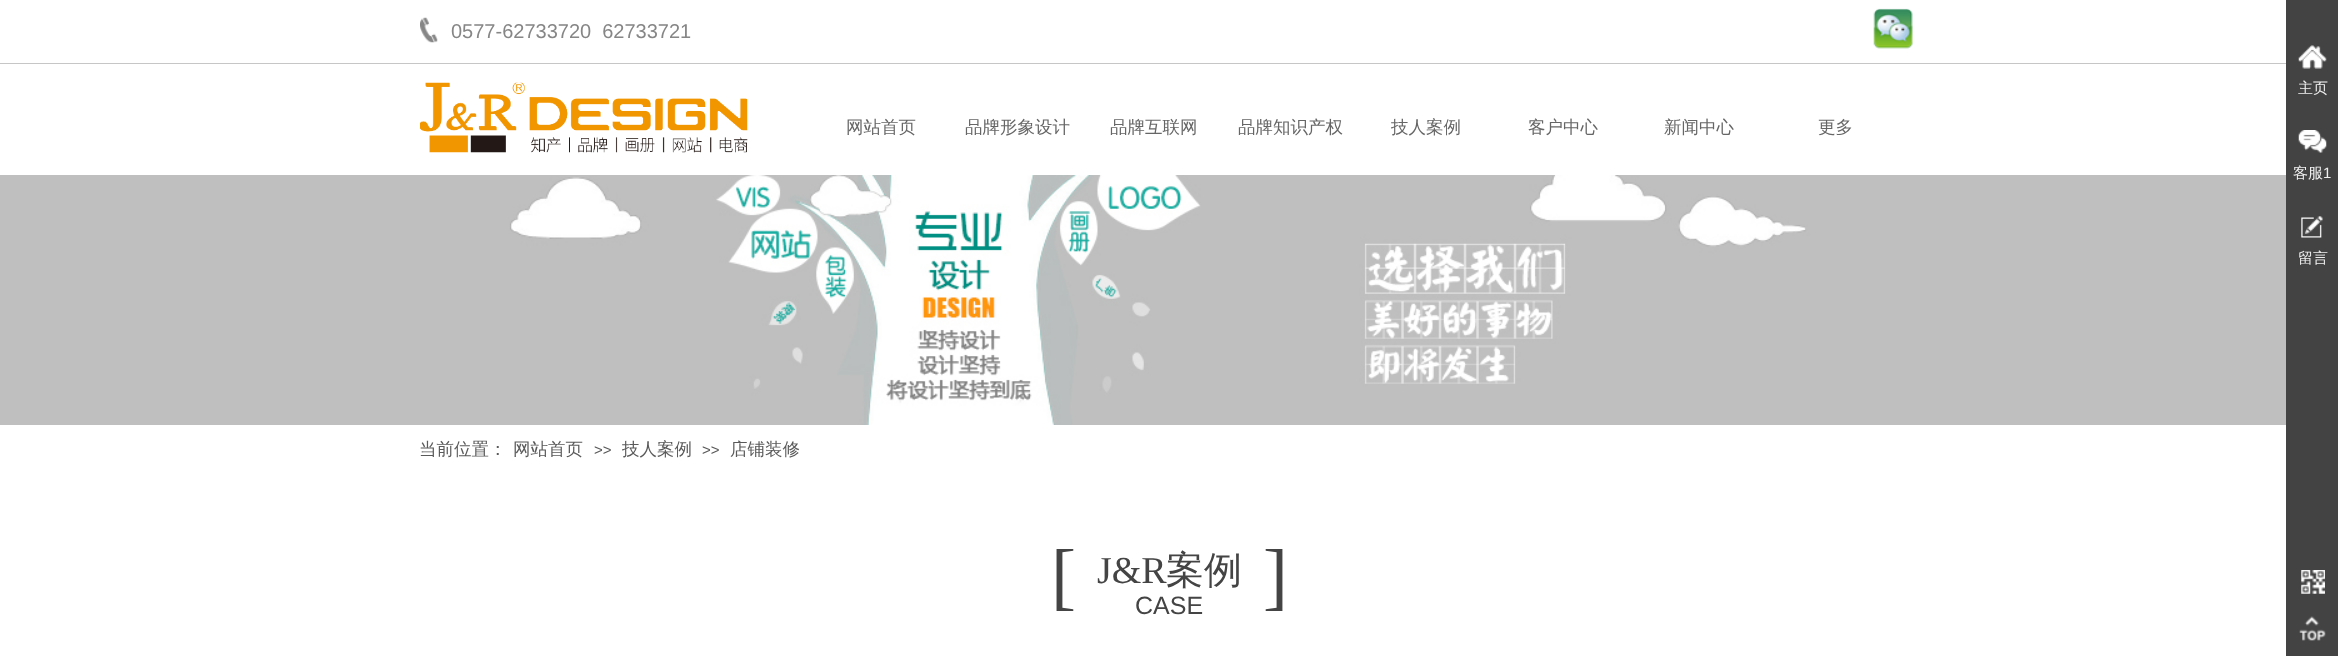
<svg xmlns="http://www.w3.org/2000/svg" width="2338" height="656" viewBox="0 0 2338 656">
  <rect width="100%" height="100%" fill="#fff"/>
  <image x="420" y="17" width="18" height="26" href="img/1.png"/>
  <image x="1873" y="8" width="40" height="41" href="img/2.png"/>
  <path d="M0 63h2286v1H0z" fill="#c6c6c6"/>
  <image x="420" y="82" width="328" height="71" href="img/3.png"/>
  <image x="0" y="175" width="2286" height="250" href="img/4.png"/>
  <path d="M2286 0h52v656H2286z" fill="#434343"/>
  <image x="2298" y="45" width="29" height="24" href="img/5.png"/>
  <image x="2298" y="130" width="29" height="23" href="img/6.png"/>
  <image x="2301" y="216" width="22" height="22" href="img/7.png"/>
  <image x="2301" y="570" width="24" height="24" href="img/8.png"/>
  <image x="2299" y="616" width="27" height="25" href="img/9.png"/>
  <text x="451" y="38" font-family="Liberation Sans" font-size="20" fill="#868686" xml:space="preserve">0577-62733720  62733721</text>
  <g font-family="WenQuanYi Zen Hei" font-size="17.5" font-weight="500" fill="#666">
    <text x="846" y="133">网站首页</text>
    <text x="965" y="133">品牌形象设计</text>
    <text x="1110" y="133">品牌互联网</text>
    <text x="1238" y="133">品牌知识产权</text>
    <text x="1391" y="133">技人案例</text>
    <text x="1528" y="133">客户中心</text>
    <text x="1664" y="133">新闻中心</text>
    <text x="1818" y="133">更多</text>
  </g>
  <g font-family="WenQuanYi Zen Hei" font-size="17.5" font-weight="500" fill="#5a5a5a">
    <text x="419" y="455">当前位置：</text>
    <text x="513" y="455">网站首页</text>
  </g>
  <text x="594" y="455" font-family="Liberation Sans" font-size="15" fill="#5a5a5a">&gt;&gt;</text>
  <text x="622" y="455" font-family="WenQuanYi Zen Hei" font-size="17.5" font-weight="500" fill="#5a5a5a">技人案例</text>
  <text x="702" y="455" font-family="Liberation Sans" font-size="15" fill="#5a5a5a">&gt;&gt;</text>
  <text x="730" y="455" font-family="WenQuanYi Zen Hei" font-size="17.5" font-weight="500" fill="#5a5a5a">店铺装修</text>
  <g font-family="Liberation Serif" font-size="75" fill="#444">
    <text x="1051" y="601">[</text>
    <text x="1263" y="601">]</text>
  </g>
  <text x="1097" y="583" font-family="Liberation Serif" font-size="38" fill="#444">J&amp;R</text>
  <text x="1166" y="583" font-family="WenQuanYi Zen Hei" font-size="38" font-weight="500" fill="#444">案例</text>
  <text x="1135" y="614" font-family="Liberation Sans" font-size="25" fill="#444">CASE</text>
  <g font-family="WenQuanYi Zen Hei" font-size="15" font-weight="500" fill="#efefef">
    <text x="2298" y="93">主页</text>
    <text x="2293" y="178">客服</text>
  </g>
  <text x="2323" y="178" font-family="Liberation Sans" font-size="15" fill="#efefef">1</text>
  <text x="2298" y="263" font-family="WenQuanYi Zen Hei" font-size="15" font-weight="500" fill="#efefef">留言</text>
</svg>
